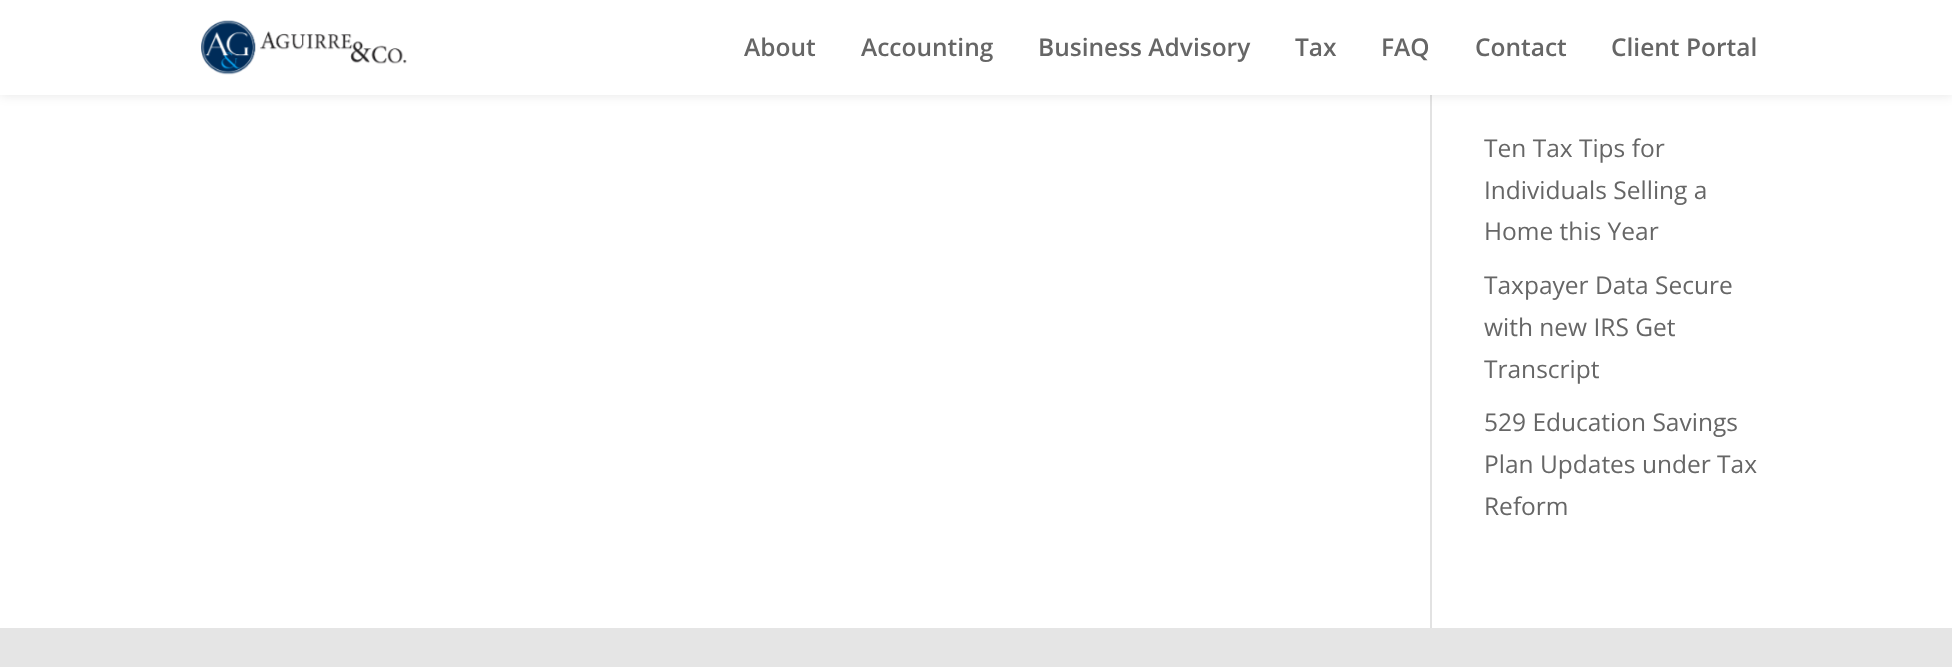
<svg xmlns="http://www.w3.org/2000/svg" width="1952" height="667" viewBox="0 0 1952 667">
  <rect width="100%" height="100%" fill="#fff"/>
  <path d="M1430 95h2v533H1430z" fill="#e2e2e2"/>
  <path d="M0 0h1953v95H0z" fill="#0000001a" filter="blur(6px)"/>
  <path d="M0 0h1952v95H0z" fill="#fff"/>
  <image x="201" y="20" width="206" height="55" href="img/1.png"/>
  <path d="M0 628h1952v39H0z" fill="#e5e5e5"/>
  <g font-family="Open Sans" font-size="24.5" font-weight="600" fill="#666">
    <text x="744" y="56">About</text>
    <text x="861" y="56">Accounting</text>
    <text x="1038" y="56">Business Advisory</text>
    <text x="1295" y="56">Tax</text>
    <text x="1381" y="56">FAQ</text>
    <text x="1475" y="56">Contact</text>
    <text x="1611" y="56">Client Portal</text>
  </g>
  <g font-family="Open Sans" font-size="24.5" fill="#666">
    <text x="1484" y="157">Ten Tax Tips for</text>
    <text x="1484" y="199">Individuals Selling a</text>
    <text x="1484" y="240">Home this Year</text>
    <text x="1484" y="294">Taxpayer Data Secure</text>
    <text x="1484" y="336">with new IRS Get</text>
    <text x="1484" y="378">Transcript</text>
    <text x="1484" y="431">529 Education Savings</text>
    <text x="1484" y="473">Plan Updates under Tax</text>
    <text x="1484" y="515">Reform</text>
  </g>
</svg>
